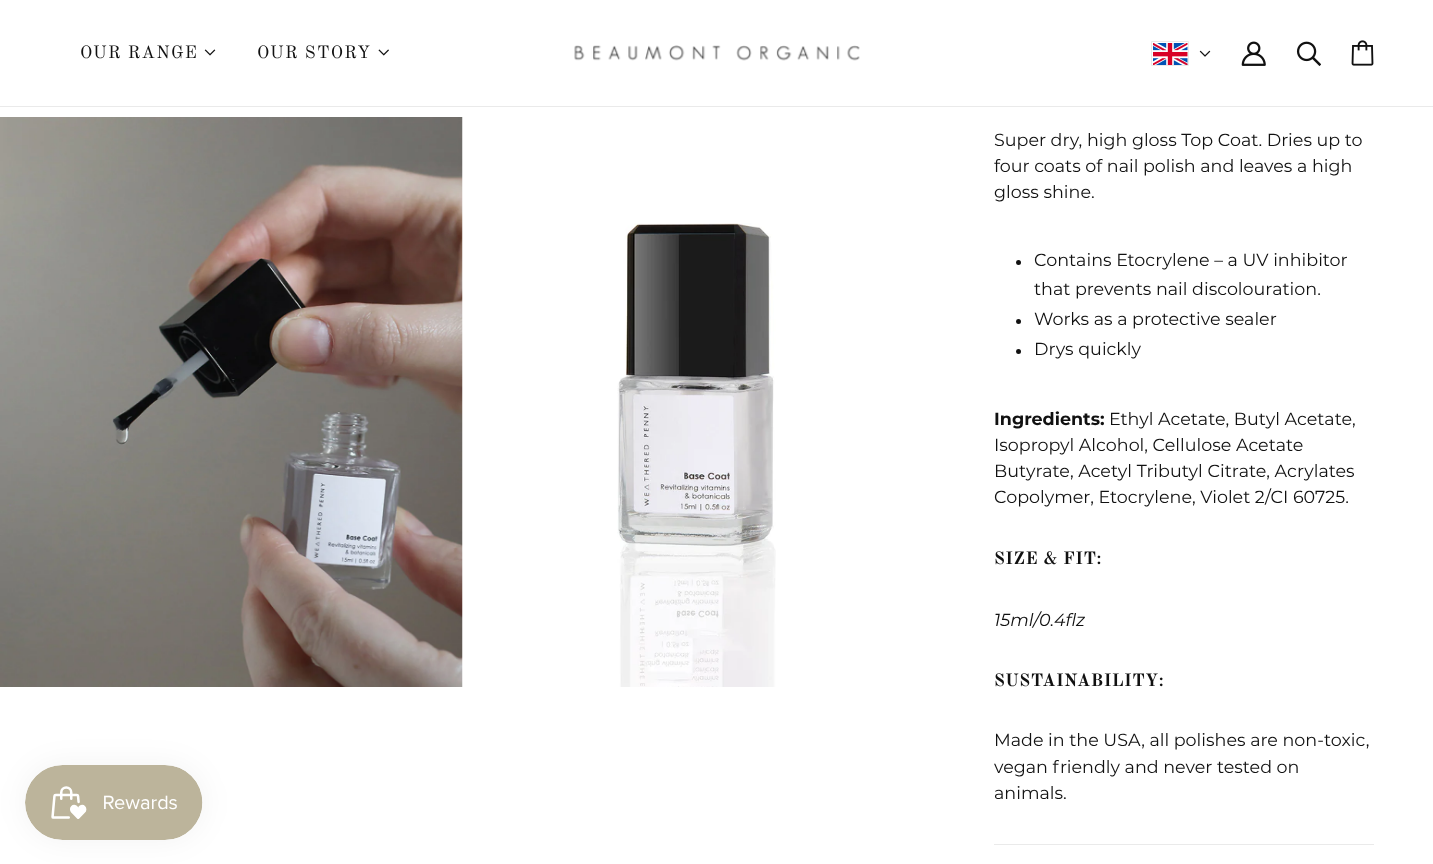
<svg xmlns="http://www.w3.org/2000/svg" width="1433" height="864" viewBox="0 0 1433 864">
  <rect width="100%" height="100%" fill="#fff"/>
  <path d="M0 106h1433v1H0z" fill="#eaeaea"/>
  <image x="204" y="49" width="12" height="7" href="img/1.png"/>
  <image x="378" y="49" width="11" height="7" href="img/2.png"/>
  <image x="574" y="45" width="286" height="16" href="img/3.png"/>
  <image x="1153" y="43" width="35" height="22" href="img/4.png"/>
  <path d="M1151.5 41.5h37v24H1151.5z" fill="none" stroke="#eaeaea"/>
  <image x="1199" y="50" width="12" height="7" href="img/5.png"/>
  <image x="1241" y="41" width="25" height="25" href="img/6.png"/>
  <image x="1296" y="41" width="25" height="25" href="img/7.png"/>
  <image x="1351" y="40" width="23" height="26" href="img/8.png"/>
  <image x="0" y="117" width="463" height="570" href="img/9.png"/>
  <image x="617" y="223" width="159" height="464" href="img/10.png"/>
  <circle cx="1018.5" cy="262.5" r="2.5" fill="#111"/>
  <circle cx="1018.5" cy="321.5" r="2.5" fill="#111"/>
  <circle cx="1018.5" cy="351.5" r="2.5" fill="#111"/>
  <path d="M994 844h380v1H994z" fill="#eaeaea"/>
  <rect x="25" y="765" width="178" height="75" rx="37.5" fill="#0000000d" filter="blur(15.5px)"/>
  <image x="25" y="765" width="178" height="75" href="img/11.png"/>
  <g font-family="Old Standard TT" font-size="17.5" letter-spacing="1.25" fill="#111">
    <text x="80" y="58">OUR RANGE</text>
    <text x="257" y="58">OUR STORY</text>
  </g>
  <g font-family="Montserrat" font-size="17.5" fill="#111">
    <text x="994" y="146">Super dry, high gloss Top Coat. Dries up to</text>
    <text x="994" y="172">four coats of nail polish and leaves a high</text>
    <text x="994" y="198">gloss shine.</text>
    <text x="1034" y="266">Contains Etocrylene – a UV inhibitor</text>
    <text x="1034" y="295">that prevents nail discolouration.</text>
    <text x="1034" y="325">Works as a protective sealer</text>
    <text x="1034" y="355">Drys quickly</text>
  </g>
  <text x="994" y="425" font-family="Montserrat" font-size="17.5" font-weight="bold" fill="#111">Ingredients:</text>
  <g font-family="Montserrat" font-size="17.5" fill="#111">
    <text x="1109" y="425">Ethyl Acetate, Butyl Acetate,</text>
    <text x="994" y="451">Isopropyl Alcohol, Cellulose Acetate</text>
    <text x="994" y="477">Butyrate, Acetyl Tributyl Citrate, Acrylates</text>
    <text x="994" y="503">Copolymer, Etocrylene, Violet 2/CI 60725.</text>
  </g>
  <text x="994" y="564" font-family="Old Standard TT" font-size="17.5" font-weight="bold" letter-spacing="0.5" fill="#111">SIZE &amp; FIT:</text>
  <text x="994" y="626" font-family="Montserrat" font-size="17.5" font-style="italic" fill="#111">15ml/0.4flz</text>
  <text x="994" y="686" font-family="Old Standard TT" font-size="17.5" font-weight="bold" letter-spacing="0.5" fill="#111">SUSTAINABILITY:</text>
  <g font-family="Montserrat" font-size="17.5" fill="#111">
    <text x="994" y="746">Made in the USA, all polishes are non-toxic,</text>
    <text x="994" y="773">vegan friendly and never tested on</text>
    <text x="994" y="799">animals.</text>
  </g>
</svg>
